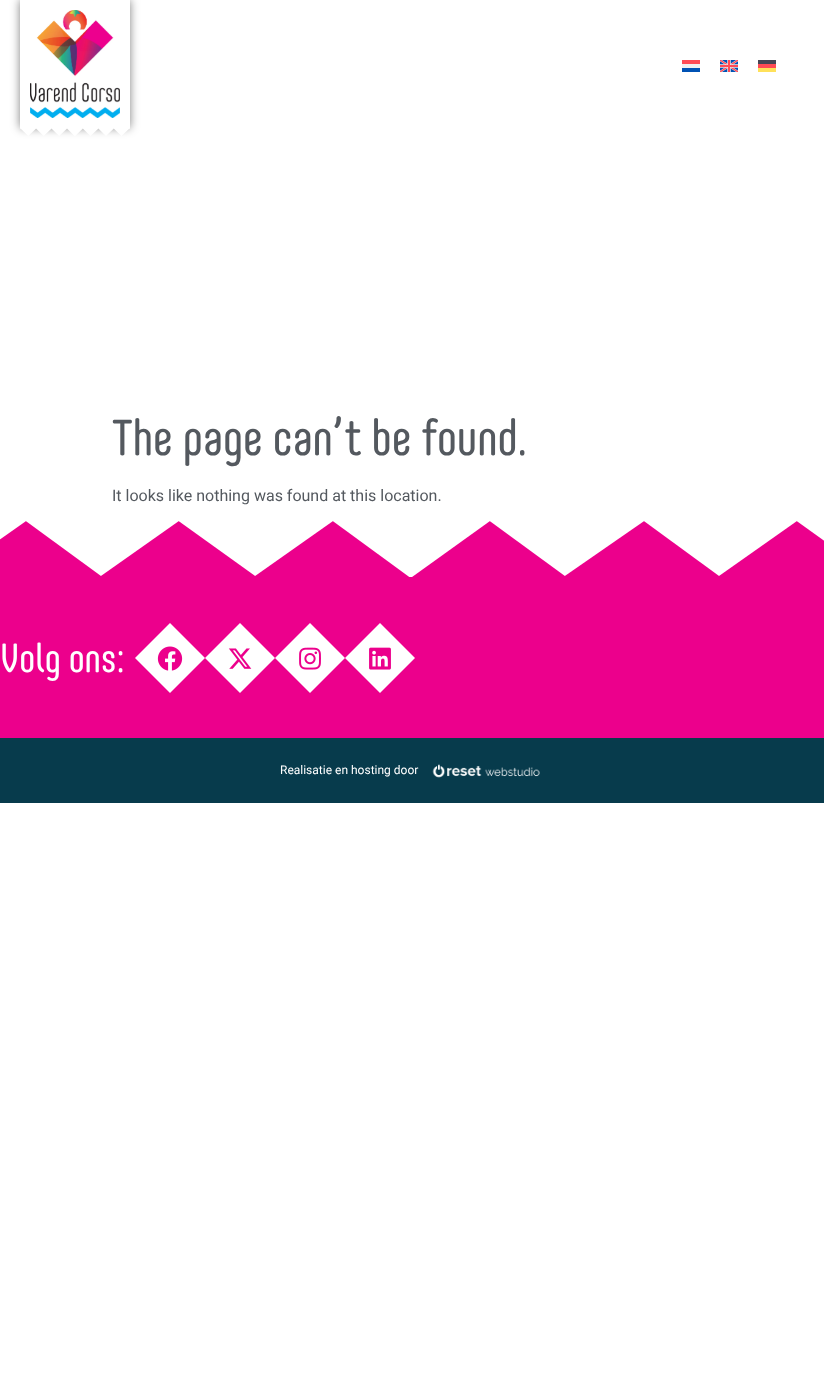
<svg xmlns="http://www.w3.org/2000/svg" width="824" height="1383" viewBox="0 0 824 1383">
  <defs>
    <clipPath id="clip1"><path d="M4 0H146V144H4ZM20 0H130V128H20Z" clip-rule="evenodd"/></clipPath>
  </defs>
  <rect width="100%" height="100%" fill="#fff"/>
  <g clip-path="url(#clip1)">
    <path d="M20 0h110v128H20z" fill="#00000080" filter="blur(5px)"/>
  </g>
  <image x="30" y="10" width="90" height="108" href="img/1.png"/>
  <image x="20" y="128" width="110" height="8" href="img/2.png"/>
  <path d="M682 60h18v4H682z" fill="#ff4b55"/>
  <path d="M682 64h18v4H682z" fill="#f0f0f0"/>
  <path d="M682 68h18v4H682z" fill="#0052b4"/>
  <image x="720" y="60" width="18" height="12" href="img/3.png"/>
  <path d="M758 60h18v4H758z" fill="#464655"/>
  <path d="M758 64h18v4H758z" fill="#ff4b55"/>
  <path d="M758 68h18v4H758z" fill="#ffe15a"/>
  <path d="M0 521h824v217H0z" fill="#ec008c"/>
  <image x="0" y="518" width="824" height="59" href="img/4.png"/>
  <path d="M170 623L205 658L170 693L135 658Z" fill="#fff"/>
  <image x="157" y="646" width="26" height="25" href="img/5.png"/>
  <path d="M240 623L275 658L240 693L205 658Z" fill="#fff"/>
  <image x="228" y="648" width="24" height="21" href="img/6.png"/>
  <path d="M310 623L345 658L310 693L275 658Z" fill="#fff"/>
  <image x="299" y="647" width="22" height="23" href="img/7.png"/>
  <path d="M380 623L415 658L380 693L345 658Z" fill="#fff"/>
  <image x="369" y="647" width="22" height="23" href="img/8.png"/>
  <path d="M0 738h824v65H0z" fill="#073b4c"/>
  <image x="432" y="764" width="108" height="14" href="img/9.png"/>
  <text x="112" y="455" font-family="'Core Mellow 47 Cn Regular'" font-size="50" fill="#54595f">The page can’t be found.</text>
  <text x="112" y="501" font-family="Roboto" font-size="16" fill="#54595f">It looks like nothing was found at this location.</text>
  <text x="0" y="672" font-family="'Core Mellow 47 Cn Regular'" font-size="40" fill="#fff">Volg ons:</text>
  <text x="280" y="774" font-family="Roboto" font-size="12" fill="#fff">Realisatie en hosting door</text>
</svg>
